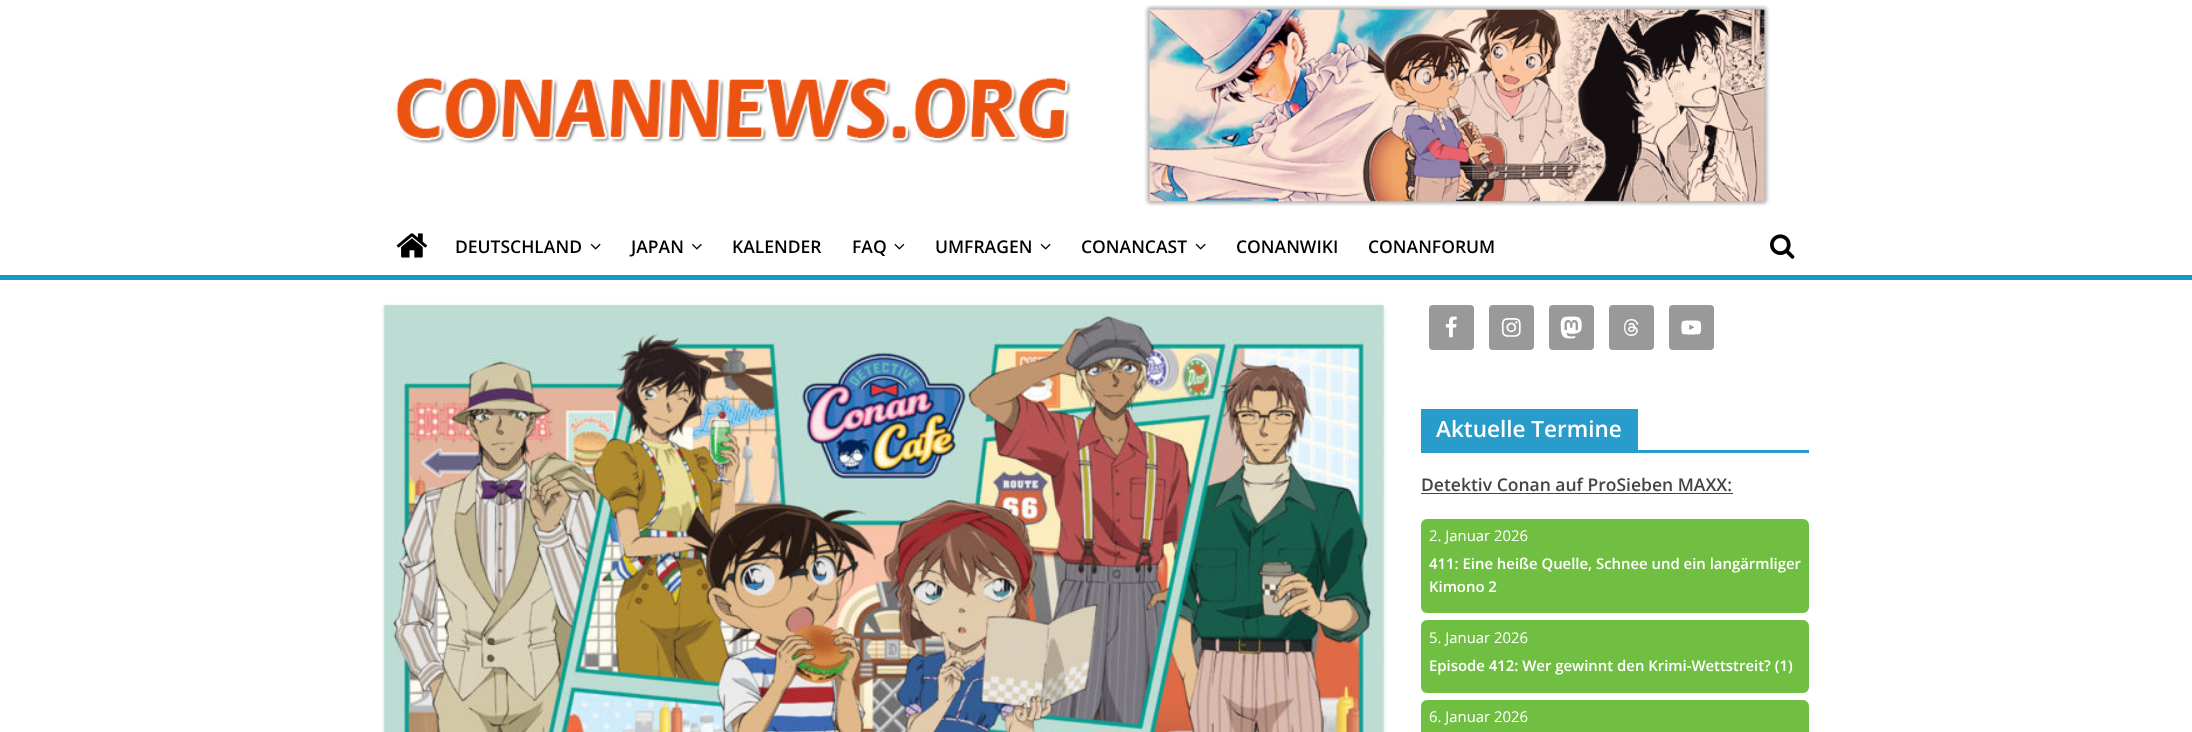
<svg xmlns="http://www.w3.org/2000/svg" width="2192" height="732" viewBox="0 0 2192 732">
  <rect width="100%" height="100%" fill="#fff"/>
  <image x="396" y="78" width="675" height="66" href="img/1.png"/>
  <image x="1144" y="5" width="626" height="201" href="img/2.png"/>
  <path d="M0 275h2192v5H0z" fill="#1698cc"/>
  <image x="396" y="233" width="32" height="25" href="img/3.png"/>
  <image x="590" y="243" width="11" height="7" href="img/4.png"/>
  <image x="692" y="243" width="10" height="7" href="img/5.png"/>
  <image x="894" y="243" width="11" height="7" href="img/6.png"/>
  <image x="1040" y="243" width="11" height="7" href="img/4.png"/>
  <image x="1195" y="243" width="11" height="7" href="img/4.png"/>
  <image x="1770" y="234" width="25" height="25" href="img/7.png"/>
  <path d="M384 306h1000v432H384z" fill="#0000001a" filter="blur(2px)"/>
  <image x="383" y="305" width="1001" height="427" href="img/8.png"/>
  <rect x="1429" y="305" width="45" height="45" rx="4" fill="#999"/>
  <image x="1445" y="316" width="12" height="22" href="img/9.png"/>
  <rect x="1489" y="305" width="45" height="45" rx="4" fill="#999"/>
  <image x="1501" y="318" width="20" height="19" href="img/10.png"/>
  <rect x="1549" y="305" width="45" height="45" rx="4" fill="#999"/>
  <image x="1560" y="316" width="22" height="23" href="img/11.png"/>
  <rect x="1609" y="305" width="45" height="45" rx="4" fill="#999"/>
  <image x="1624" y="319" width="15" height="17" href="img/12.png"/>
  <rect x="1669" y="305" width="45" height="45" rx="4" fill="#999"/>
  <image x="1681" y="320" width="21" height="15" href="img/13.png"/>
  <path d="M1421 450h388v3H1421z" fill="#289dcc"/>
  <path d="M1421 409h217v41H1421z" fill="#289dcc"/>
  <path d="M1421 493h312v1H1421z" fill="#444"/>
  <rect x="1421" y="519" width="388" height="94" rx="6" fill="#71bf42"/>
  <rect x="1421" y="620" width="388" height="73" rx="6" fill="#71bf42"/>
  <rect x="1421" y="700" width="388" height="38" rx="6" fill="#71bf42"/>
  <g font-family="Open Sans" font-size="17.5" font-weight="600" fill="#000">
    <text x="455" y="253">DEUTSCHLAND</text>
    <text x="631" y="253">JAPAN</text>
    <text x="732" y="253">KALENDER</text>
    <text x="852" y="253">FAQ</text>
    <text x="935" y="253">UMFRAGEN</text>
    <text x="1081" y="253">CONANCAST</text>
    <text x="1236" y="253">CONANWIKI</text>
    <text x="1368" y="253">CONANFORUM</text>
  </g>
  <text x="1436" y="437" font-family="Open Sans" font-size="22.5" font-weight="600" fill="#fff">Aktuelle Termine</text>
  <text x="1421" y="491" font-family="Open Sans" font-size="17.5" font-weight="600" fill="#444">Detektiv Conan auf ProSieben MAXX:</text>
  <text x="1429" y="541" font-family="Open Sans" font-size="14.9" fill="#fff">2. Januar 2026</text>
  <g font-family="Open Sans" font-size="14.9" font-weight="600" fill="#fff">
    <text x="1429" y="569">411: Eine heiße Quelle, Schnee und ein langärmliger</text>
    <text x="1429" y="592">Kimono 2</text>
  </g>
  <text x="1429" y="643" font-family="Open Sans" font-size="14.9" fill="#fff">5. Januar 2026</text>
  <text x="1429" y="671" font-family="Open Sans" font-size="14.9" font-weight="600" fill="#fff">Episode 412: Wer gewinnt den Krimi-Wettstreit? (1)</text>
  <text x="1429" y="722" font-family="Open Sans" font-size="14.9" fill="#fff">6. Januar 2026</text>
</svg>
